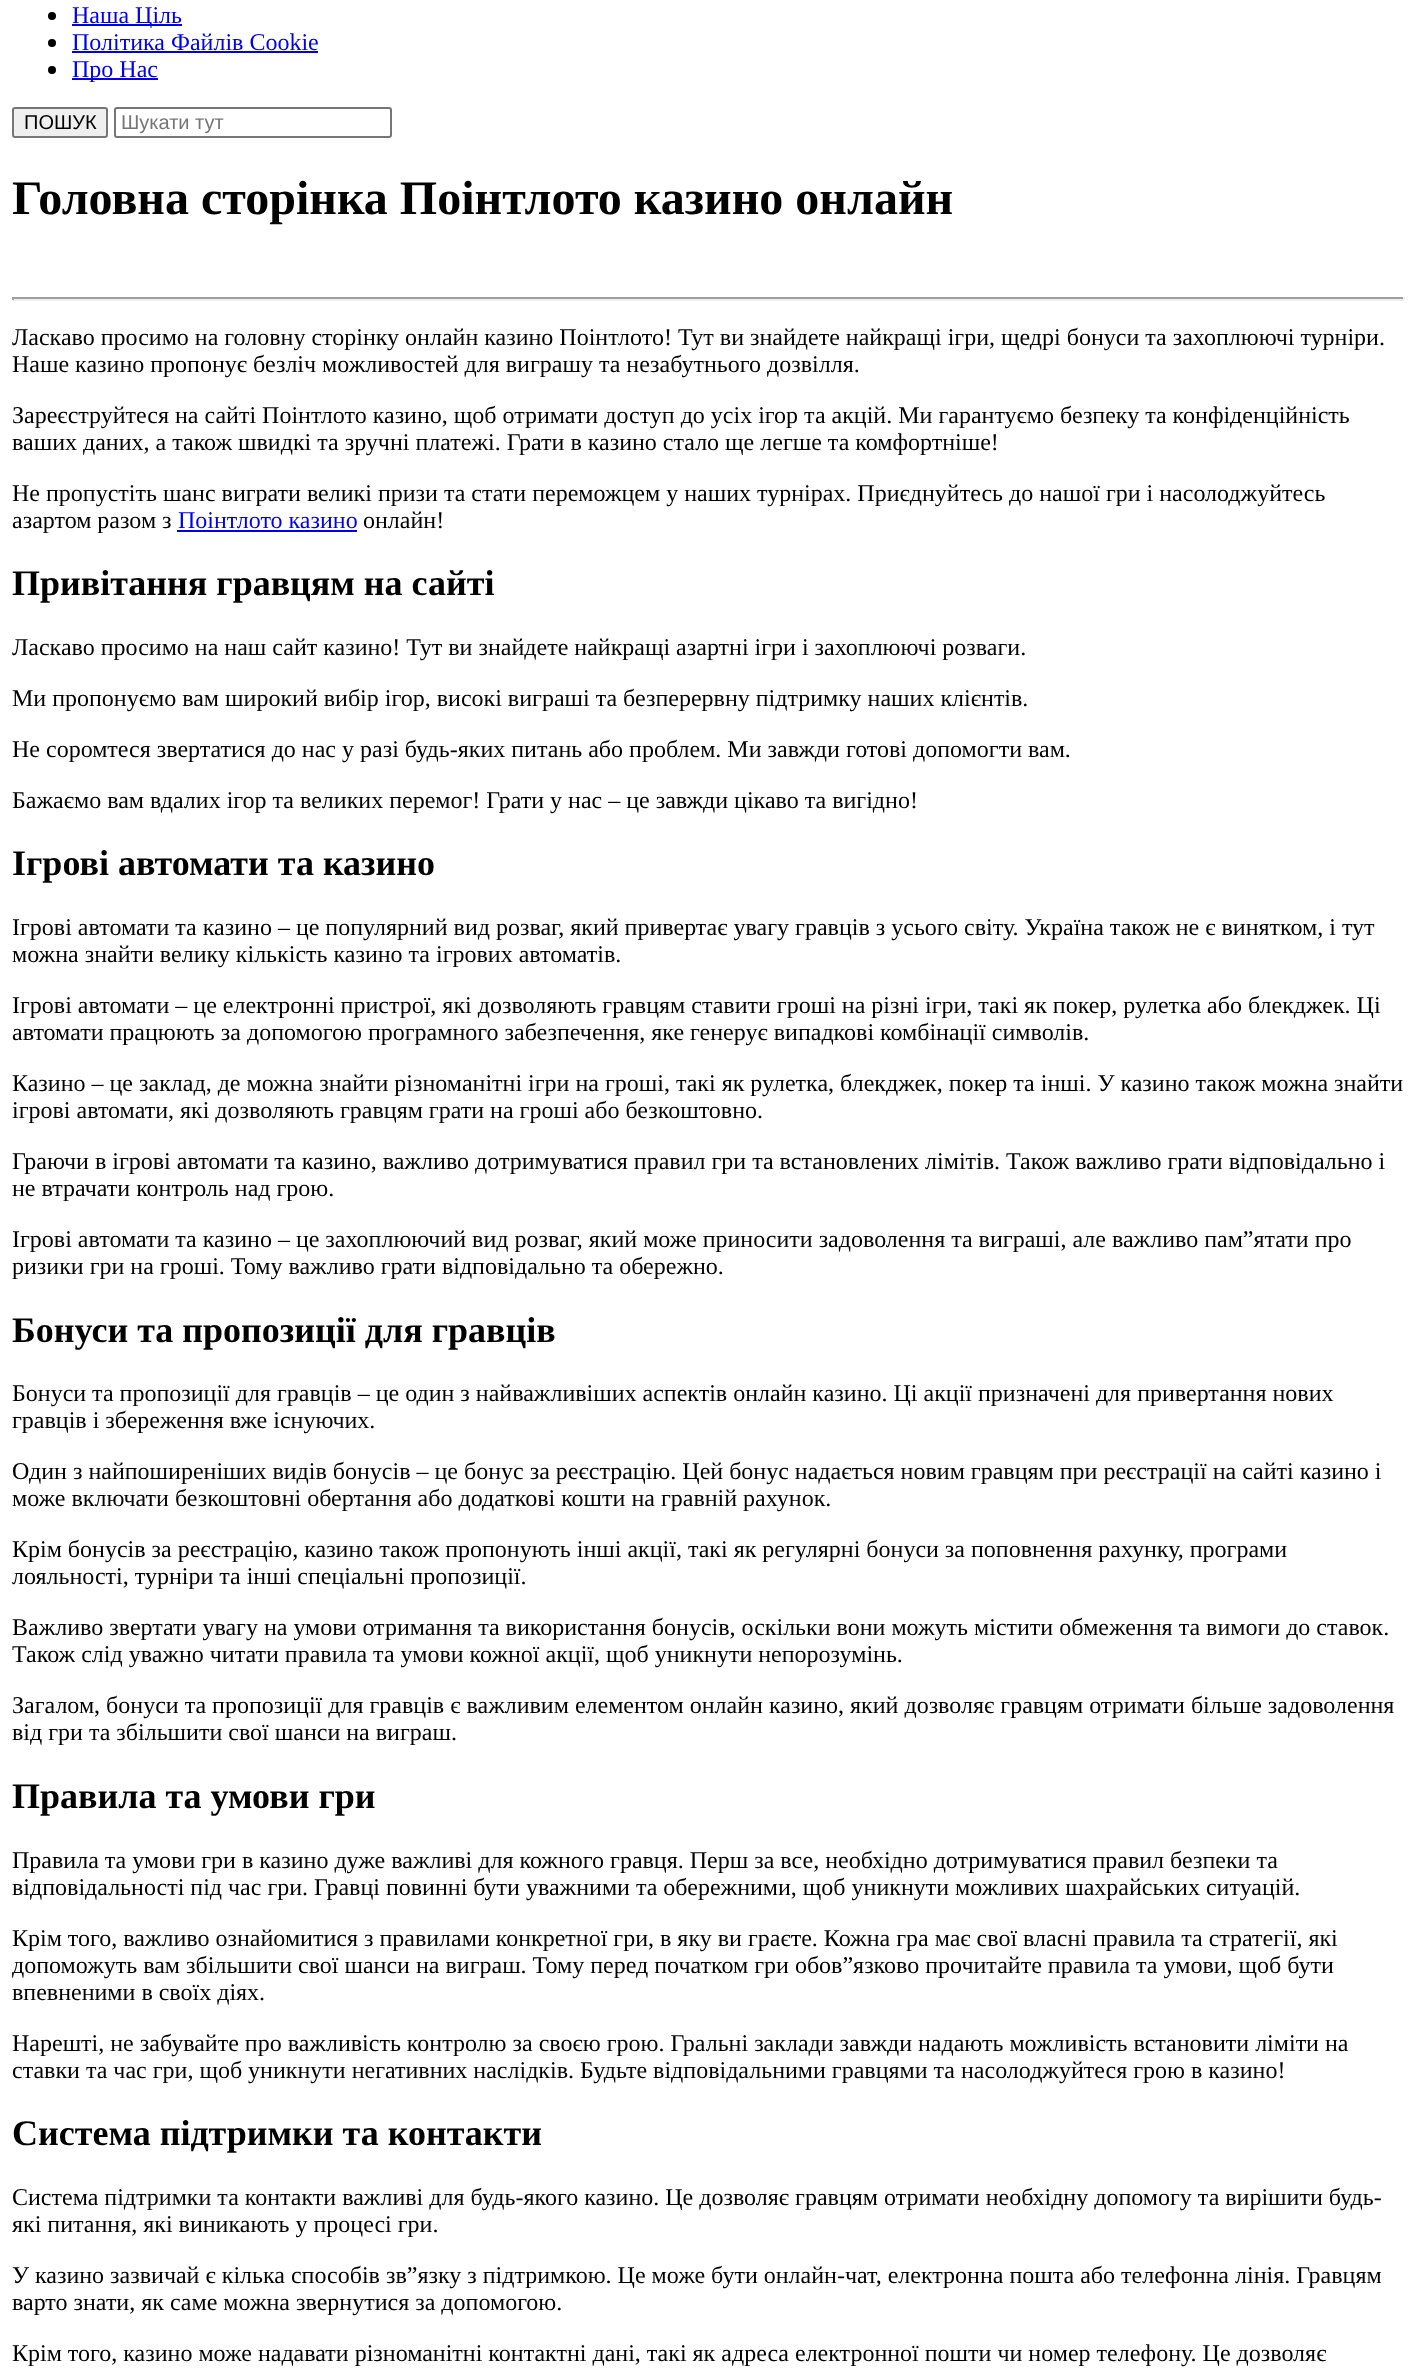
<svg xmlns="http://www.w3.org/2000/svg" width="1416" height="2373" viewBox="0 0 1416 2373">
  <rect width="100%" height="100%" fill="#fff"/>
  <circle cx="52" cy="16" r="4" fill="#000"/>
  <path d="M72 24h110v2H72z" fill="#00e"/>
  <circle cx="52" cy="43" r="4" fill="#000"/>
  <path d="M72 51h246v2H72z" fill="#00e"/>
  <circle cx="52" cy="70" r="4" fill="#000"/>
  <path d="M72 78h86v2H72z" fill="#00e"/>
  <rect x="13" y="108" width="94" height="29" rx="2" fill="#efefef" stroke="#767676" stroke-width="2"/>
  <rect x="115" y="108" width="276" height="29" rx="2" fill="none" stroke="#767676" stroke-width="2"/>
  <path d="M12 297h1392v2H12z" fill="#9f9f9f"/>
  <path d="M1403 297h2v3H1403z" fill="#eee"/>
  <path d="M12 299h1392v2H12z" fill="#eee"/>
  <path d="M12 297h2v3H12z" fill="#9f9f9f"/>
  <path d="M177 530h180v2H177z" fill="#00e"/>
  <g font-family="Liberation Serif" font-size="24" fill="#00e">
    <text x="72" y="23">Наша Ціль</text>
    <text x="72" y="50">Політика Файлів Cookie</text>
    <text x="72" y="77">Про Нас</text>
  </g>
  <text x="24" y="129" font-family="Liberation Sans" font-size="20" fill="#000">ПОШУК</text>
  <text x="121" y="129" font-family="Liberation Sans" font-size="20" fill="#757575">Шукати тут</text>
  <text x="12" y="214" font-family="Liberation Serif" font-size="48" font-weight="bold" fill="#000">Головна сторінка Поінтлото казино онлайн</text>
  <g font-family="Liberation Serif" font-size="24" fill="#000">
    <text x="12" y="345">Ласкаво просимо на головну сторінку онлайн казино Поінтлото! Тут ви знайдете найкращі ігри, щедрі бонуси та захоплюючі турніри.</text>
    <text x="12" y="372">Наше казино пропонує безліч можливостей для виграшу та незабутнього дозвілля.</text>
    <text x="12" y="423">Зареєструйтеся на сайті Поінтлото казино, щоб отримати доступ до усіх ігор та акцій. Ми гарантуємо безпеку та конфіденційність</text>
    <text x="12" y="450">ваших даних, а також швидкі та зручні платежі. Грати в казино стало ще легше та комфортніше!</text>
    <text x="12" y="501">Не пропустіть шанс виграти великі призи та стати переможцем у наших турнірах. Приєднуйтесь до нашої гри і насолоджуйтесь</text>
    <text x="12" y="528">азартом разом з</text>
  </g>
  <text x="178" y="528" font-family="Liberation Serif" font-size="24" fill="#00e">Поінтлото казино</text>
  <text x="363" y="528" font-family="Liberation Serif" font-size="24" fill="#000">онлайн!</text>
  <text x="12" y="595" font-family="Liberation Serif" font-size="36" font-weight="bold" fill="#000">Привітання гравцям на сайті</text>
  <g font-family="Liberation Serif" font-size="24" fill="#000">
    <text x="12" y="655">Ласкаво просимо на наш сайт казино! Тут ви знайдете найкращі азартні ігри і захоплюючі розваги.</text>
    <text x="12" y="706">Ми пропонуємо вам широкий вибір ігор, високі виграші та безперервну підтримку наших клієнтів.</text>
    <text x="12" y="757">Не соромтеся звертатися до нас у разі будь-яких питань або проблем. Ми завжди готові допомогти вам.</text>
    <text x="12" y="808">Бажаємо вам вдалих ігор та великих перемог! Грати у нас – це завжди цікаво та вигідно!</text>
  </g>
  <text x="12" y="875" font-family="Liberation Serif" font-size="36" font-weight="bold" fill="#000">Ігрові автомати та казино</text>
  <g font-family="Liberation Serif" font-size="24" fill="#000">
    <text x="12" y="935">Ігрові автомати та казино – це популярний вид розваг, який привертає увагу гравців з усього світу. Україна також не є винятком, і тут</text>
    <text x="12" y="962">можна знайти велику кількість казино та ігрових автоматів.</text>
    <text x="12" y="1013">Ігрові автомати – це електронні пристрої, які дозволяють гравцям ставити гроші на різні ігри, такі як покер, рулетка або блекджек. Ці</text>
    <text x="12" y="1040">автомати працюють за допомогою програмного забезпечення, яке генерує випадкові комбінації символів.</text>
    <text x="12" y="1091">Казино – це заклад, де можна знайти різноманітні ігри на гроші, такі як рулетка, блекджек, покер та інші. У казино також можна знайти</text>
    <text x="12" y="1118">ігрові автомати, які дозволяють гравцям грати на гроші або безкоштовно.</text>
    <text x="12" y="1169">Граючи в ігрові автомати та казино, важливо дотримуватися правил гри та встановлених лімітів. Також важливо грати відповідально і</text>
    <text x="12" y="1196">не втрачати контроль над грою.</text>
    <text x="12" y="1247">Ігрові автомати та казино – це захоплюючий вид розваг, який може приносити задоволення та виграші, але важливо пам”ятати про</text>
    <text x="12" y="1274">ризики гри на гроші. Тому важливо грати відповідально та обережно.</text>
  </g>
  <text x="12" y="1342" font-family="Liberation Serif" font-size="36" font-weight="bold" fill="#000">Бонуси та пропозиції для гравців</text>
  <g font-family="Liberation Serif" font-size="24" fill="#000">
    <text x="12" y="1401">Бонуси та пропозиції для гравців – це один з найважливіших аспектів онлайн казино. Ці акції призначені для привертання нових</text>
    <text x="12" y="1428">гравців і збереження вже існуючих.</text>
    <text x="12" y="1479">Один з найпоширеніших видів бонусів – це бонус за реєстрацію. Цей бонус надається новим гравцям при реєстрації на сайті казино і</text>
    <text x="12" y="1506">може включати безкоштовні обертання або додаткові кошти на гравній рахунок.</text>
    <text x="12" y="1557">Крім бонусів за реєстрацію, казино також пропонують інші акції, такі як регулярні бонуси за поповнення рахунку, програми</text>
    <text x="12" y="1584">лояльності, турніри та інші спеціальні пропозиції.</text>
    <text x="12" y="1635">Важливо звертати увагу на умови отримання та використання бонусів, оскільки вони можуть містити обмеження та вимоги до ставок.</text>
    <text x="12" y="1662">Також слід уважно читати правила та умови кожної акції, щоб уникнути непорозумінь.</text>
    <text x="12" y="1713">Загалом, бонуси та пропозиції для гравців є важливим елементом онлайн казино, який дозволяє гравцям отримати більше задоволення</text>
    <text x="12" y="1740">від гри та збільшити свої шанси на виграш.</text>
  </g>
  <text x="12" y="1808" font-family="Liberation Serif" font-size="36" font-weight="bold" fill="#000">Правила та умови гри</text>
  <g font-family="Liberation Serif" font-size="24" fill="#000">
    <text x="12" y="1868">Правила та умови гри в казино дуже важливі для кожного гравця. Перш за все, необхідно дотримуватися правил безпеки та</text>
    <text x="12" y="1895">відповідальності під час гри. Гравці повинні бути уважними та обережними, щоб уникнути можливих шахрайських ситуацій.</text>
    <text x="12" y="1946">Крім того, важливо ознайомитися з правилами конкретної гри, в яку ви граєте. Кожна гра має свої власні правила та стратегії, які</text>
    <text x="12" y="1973">допоможуть вам збільшити свої шанси на виграш. Тому перед початком гри обов”язково прочитайте правила та умови, щоб бути</text>
    <text x="12" y="2000">впевненими в своїх діях.</text>
    <text x="12" y="2051">Нарешті, не забувайте про важливість контролю за своєю грою. Гральні заклади завжди надають можливість встановити ліміти на</text>
    <text x="12" y="2078">ставки та час гри, щоб уникнути негативних наслідків. Будьте відповідальними гравцями та насолоджуйтеся грою в казино!</text>
  </g>
  <text x="12" y="2145" font-family="Liberation Serif" font-size="36" font-weight="bold" fill="#000">Система підтримки та контакти</text>
  <g font-family="Liberation Serif" font-size="24" fill="#000">
    <text x="12" y="2205">Система підтримки та контакти важливі для будь-якого казино. Це дозволяє гравцям отримати необхідну допомогу та вирішити будь-</text>
    <text x="12" y="2232">які питання, які виникають у процесі гри.</text>
    <text x="12" y="2283">У казино зазвичай є кілька способів зв”язку з підтримкою. Це може бути онлайн-чат, електронна пошта або телефонна лінія. Гравцям</text>
    <text x="12" y="2310">варто знати, як саме можна звернутися за допомогою.</text>
    <text x="12" y="2361">Крім того, казино може надавати різноманітні контактні дані, такі як адреса електронної пошти чи номер телефону. Це дозволяє</text>
  </g>
</svg>
